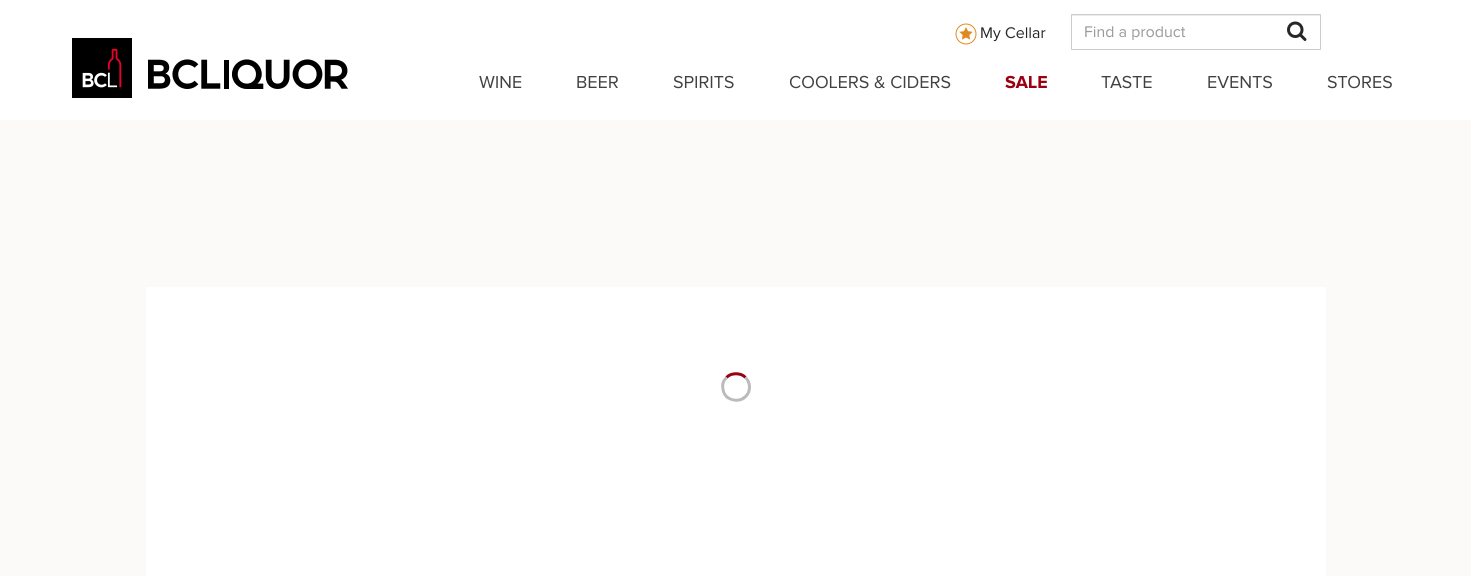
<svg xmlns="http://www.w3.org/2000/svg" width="1471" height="576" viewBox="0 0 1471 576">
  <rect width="100%" height="100%" fill="#fbfaf8"/>
  <path d="M0 0h1471v120H0z" fill="#fff"/>
  <image x="955" y="23" width="22" height="22" href="img/1.png"/>
  <image x="981" y="27" width="65" height="15" href="img/2.png"/>
  <path d="M1072 15h248v1H1072z" fill="#ececec"/>
  <path d="M1071.5 14.5h249v35H1071.5z" fill="none" stroke="#ccc"/>
  <image x="1085" y="26" width="101" height="14" href="img/3.png"/>
  <image x="1287" y="21" width="20" height="20" href="img/4.png"/>
  <image x="72" y="38" width="276" height="60" href="img/5.png"/>
  <image x="479" y="76" width="43" height="12" href="img/6.png"/>
  <image x="577" y="76" width="41" height="12" href="img/7.png"/>
  <image x="673" y="75" width="61" height="14" href="img/8.png"/>
  <image x="789" y="75" width="162" height="14" href="img/9.png"/>
  <image x="1005" y="75" width="42" height="14" href="img/10.png"/>
  <image x="1101" y="75" width="51" height="14" href="img/11.png"/>
  <image x="1208" y="75" width="64" height="14" href="img/12.png"/>
  <image x="1327" y="75" width="65" height="14" href="img/13.png"/>
  <path d="M146 287h1180v289H146z" fill="#fff"/>
  <path d="M726.5 377.5C731.5 372.5 740.5 372.5 745.5 377.5" fill="none" stroke="#9b0010" stroke-width="3"/>
  <path d="M745.5 377.5C748 380 749.5 383.5 749.5 387C749.5 403 726 405.5 723 389.5C722 385.5 723.5 380.5 726.5 377.5" fill="none" stroke="#bbb" stroke-width="3"/>
</svg>
